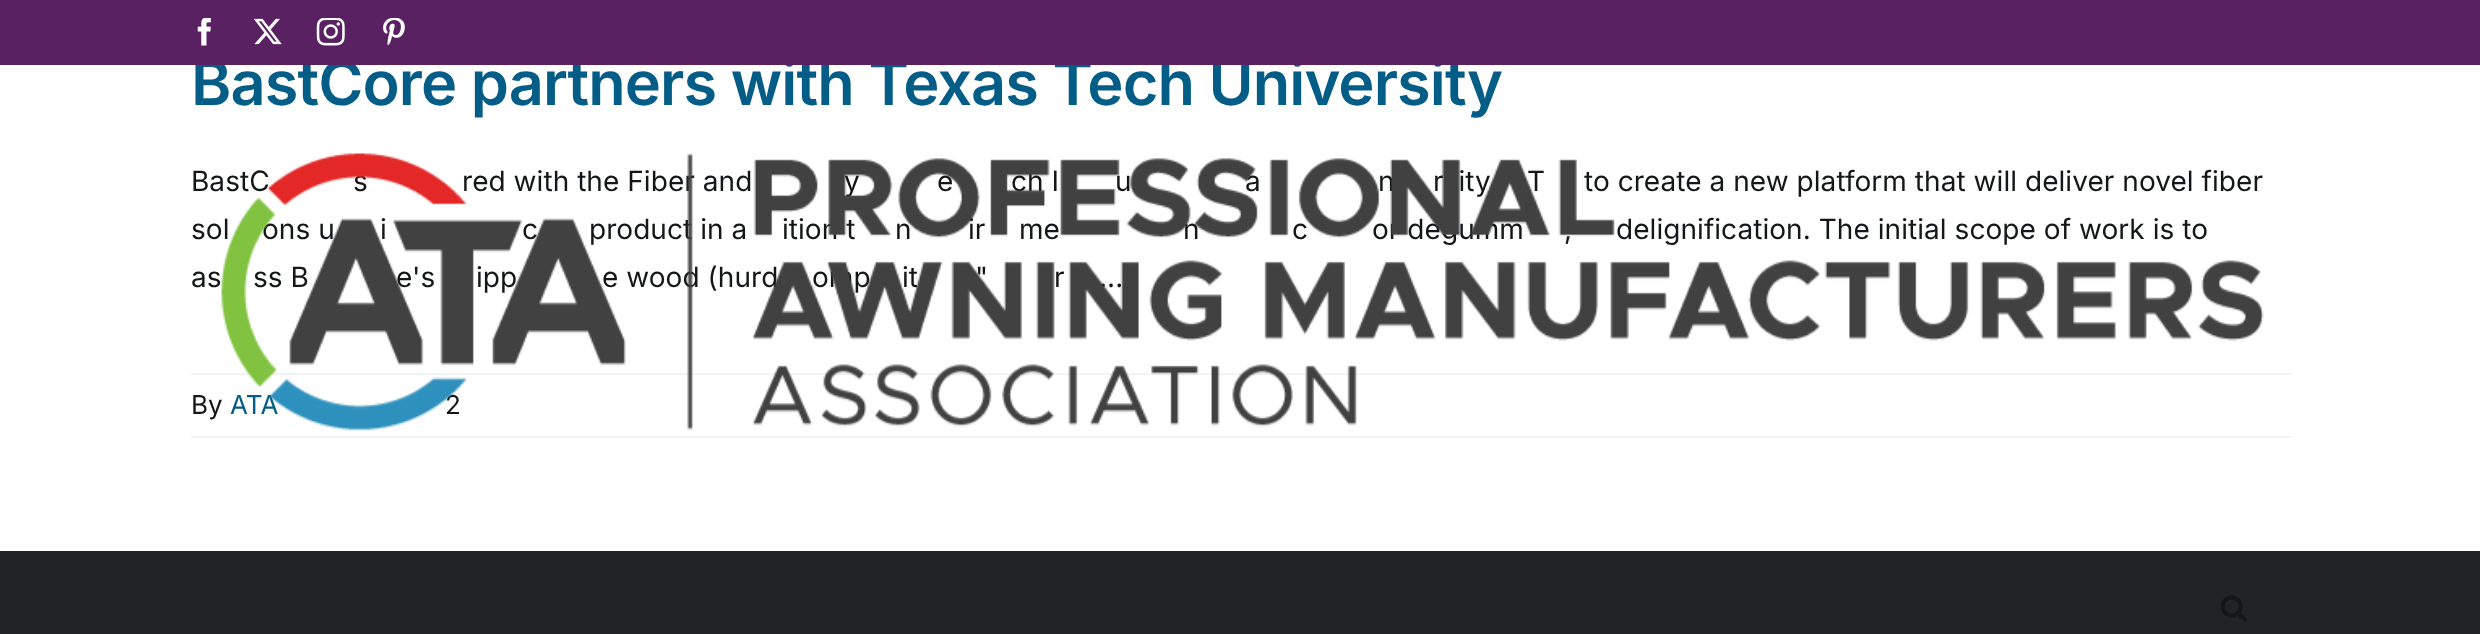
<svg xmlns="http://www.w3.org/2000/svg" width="2480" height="634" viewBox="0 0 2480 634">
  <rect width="100%" height="100%" fill="#fff"/>
  <path d="M0 551h2480v83H0z" fill="#212326"/>
  <image x="2221" y="595" width="26" height="27" href="img/6.png"/>
  <path d="M191 373h2100v2H191z" fill="#f2f3f5"/>
  <path d="M191 436h2100v2H191z" fill="#f2f3f5"/>
  <text x="191" y="105" font-family="Inter" font-size="61.25" font-weight="600" letter-spacing="-0.9" fill="#045d86">BastCore partners with Texas Tech University</text>
  <path d="M0 0h2480v65H0z" fill="#592162"/>
  <image x="383" y="18" width="22" height="28" href="img/4.png"/>
  <image x="316" y="18" width="29" height="28" href="img/3.png"/>
  <image x="253" y="18" width="29" height="27" href="img/2.png"/>
  <image x="197" y="18" width="14" height="28" href="img/1.png"/>
  <g font-family="Inter" font-size="28" letter-spacing="0.05" fill="#141617">
    <text x="191" y="191">BastC</text>
    <text x="353" y="191">s</text>
    <text x="462" y="191">red with the Fiber and</text>
    <text x="844" y="191">y</text>
    <text x="937" y="191">e</text>
    <text x="1011" y="191">ch I</text>
    <text x="1115" y="191">u</text>
    <text x="1245" y="191">a</text>
    <text x="1378" y="191">n</text>
    <text x="1433" y="191">rsity</text>
    <text x="1527" y="191">T</text>
    <text x="1584" y="191">to create a new platform that will deliver novel fiber</text>
    <text x="191" y="239">sol</text>
    <text x="262" y="239">ons u</text>
    <text x="380" y="239">i</text>
    <text x="522" y="239">c</text>
    <text x="589" y="239">product in a</text>
    <text x="782" y="239">ition t</text>
    <text x="895" y="239">n</text>
    <text x="968" y="239">ir</text>
    <text x="1019" y="239">me</text>
    <text x="1183" y="239">n</text>
    <text x="1292" y="239">c</text>
    <text x="1372" y="239">or degumm</text>
    <text x="1564" y="239">,</text>
    <text x="1616" y="239">delignification. The initial scope of work is to</text>
    <text x="191" y="287">as</text>
    <text x="253" y="287">ss B</text>
    <text x="396" y="287">e's</text>
    <text x="476" y="287">ipp</text>
    <text x="602" y="287">e wood (hurd</text>
    <text x="812" y="287">omp</text>
    <text x="902" y="287">it</text>
    <text x="975" y="287">"</text>
    <text x="1054" y="287">r</text>
    <text x="1099" y="287">...</text>
  </g>
  <text x="191" y="414" font-family="Inter" font-size="26" letter-spacing="0.05" fill="#141617">By</text>
  <text x="230" y="414" font-family="Inter" font-size="26" letter-spacing="0.05" fill="#045d86">ATA</text>
  <text x="445" y="414" font-family="Inter" font-size="26" letter-spacing="0.05" fill="#141617">2</text>
  <image x="221" y="153" width="2043" height="279" href="img/5.png"/>
</svg>
